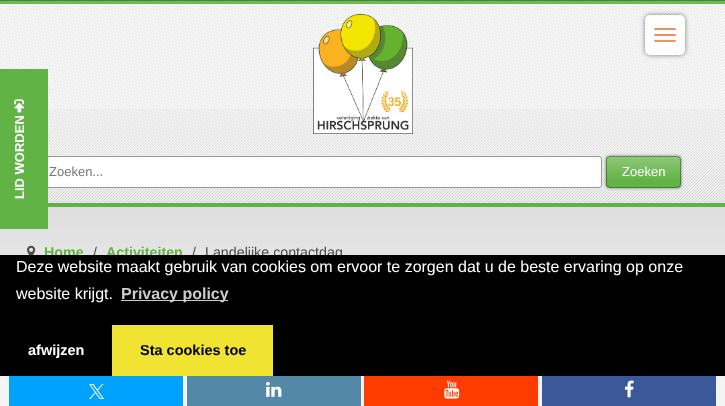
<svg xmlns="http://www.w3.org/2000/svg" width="725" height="406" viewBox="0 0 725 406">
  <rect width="100%" height="100%" fill="#fff"/>
  <path d="M0 1h725v206H0z" fill="#62b345"/>
  <path d="M0 4h725v199H0z" fill="#fbfbfb"/>
  <image x="48" y="109" width="677" height="94" href="img/7.png"/>
  <image x="0" y="4" width="725" height="199" href="img/8.png"/>
  <rect x="606" y="156" width="75" height="32" rx="4" fill="#00000080" filter="blur(1.5px)"/>
  <rect x="44.5" y="156.5" width="557" height="31" rx="2.5" fill="#fff" stroke="#999"/>
  <image x="0" y="207" width="725" height="199" href="img/11.png"/>
  <path d="M0 69h48v160H0z" fill="#62b345"/>
  <image x="14" y="99" width="11" height="14" href="img/1.png"/>
  <path d="M9 376h174v30H9z" fill="#00a2ff"/>
  <image x="89" y="384" width="15" height="15" href="img/2.png"/>
  <path d="M187 376h174v30H187z" fill="#5388a7"/>
  <image x="266" y="382" width="16" height="15" href="img/3.png"/>
  <path d="M364 376h174v30H364z" fill="#ff3c00"/>
  <image x="444" y="380" width="16" height="19" href="img/4.png"/>
  <path d="M542 376h174v30H542z" fill="#3b5998"/>
  <image x="624" y="380" width="10" height="18" href="img/5.png"/>
  <image x="0" y="1" width="725" height="3" href="img/6.png"/>
  <path d="M0 0h725v1H0z" fill="#4e823c"/>
  <image x="313" y="14" width="100" height="120" href="img/9.png"/>
  <rect x="645" y="15" width="40" height="40" rx="5" fill="#00000080" filter="blur(2.5px)"/>
  <rect x="645" y="15" width="40" height="40" rx="5" fill="#fff"/>
  <path d="M675 29H655M675 35H655M675 41H655" fill="none" stroke="#ef915e" stroke-width="1.9" stroke-linecap="round"/>
  <rect x="606" y="156" width="75" height="32" rx="4" fill="#62b345"/>
  <image x="606" y="156" width="75" height="24" href="img/10.png"/>
  <rect x="606.5" y="156.5" width="74" height="31" rx="3.5" fill="none" stroke="#0000004d"/>
  <image x="27" y="245" width="9" height="10" href="img/12.png"/>
  <text x="24" y="199" transform="rotate(-90 24 199)" font-family="Liberation Sans" font-size="13" font-weight="bold" fill="#fff">LID WORDEN</text>
  <text x="49" y="176" font-family="Liberation Sans" font-size="13" fill="#757575">Zoeken...</text>
  <text x="622" y="176" font-family="Liberation Sans" font-size="13" fill="#fff">Zoeken</text>
  <text x="44" y="257" font-family="Liberation Sans" font-size="14.25" font-weight="bold" fill="#62b345">Home</text>
  <text x="93" y="257" font-family="Liberation Sans" font-size="14.25" fill="#4c4a47">/</text>
  <text x="106" y="257" font-family="Liberation Sans" font-size="14.25" font-weight="bold" fill="#62b345">Activiteiten</text>
  <g font-family="Liberation Sans" font-size="14.25" fill="#4c4a47">
    <text x="192" y="257">/</text>
    <text x="205" y="257">Landelijke contactdag</text>
  </g>
  <path d="M0 255h725v121H0z" fill="#000"/>
  <g font-family="Liberation Sans" font-size="16" fill="#fff">
    <text x="16" y="272">Deze website maakt gebruik van cookies om ervoor te zorgen dat u de beste ervaring op onze</text>
    <text x="16" y="299">website krijgt.</text>
  </g>
  <path d="M121 300h107v1H121z" fill="#ccc"/>
  <text x="121" y="299" font-family="Liberation Sans" font-size="16" font-weight="bold" fill="#ccc">Privacy policy</text>
  <text x="28" y="355" font-family="Liberation Sans" font-size="14.5" font-weight="bold" fill="#fff">afwijzen</text>
  <path d="M112 325h161v51H112z" fill="#f1e332"/>
  <text x="140" y="355" font-family="Liberation Sans" font-size="14.5" font-weight="bold" fill="#000">Sta cookies toe</text>
</svg>
